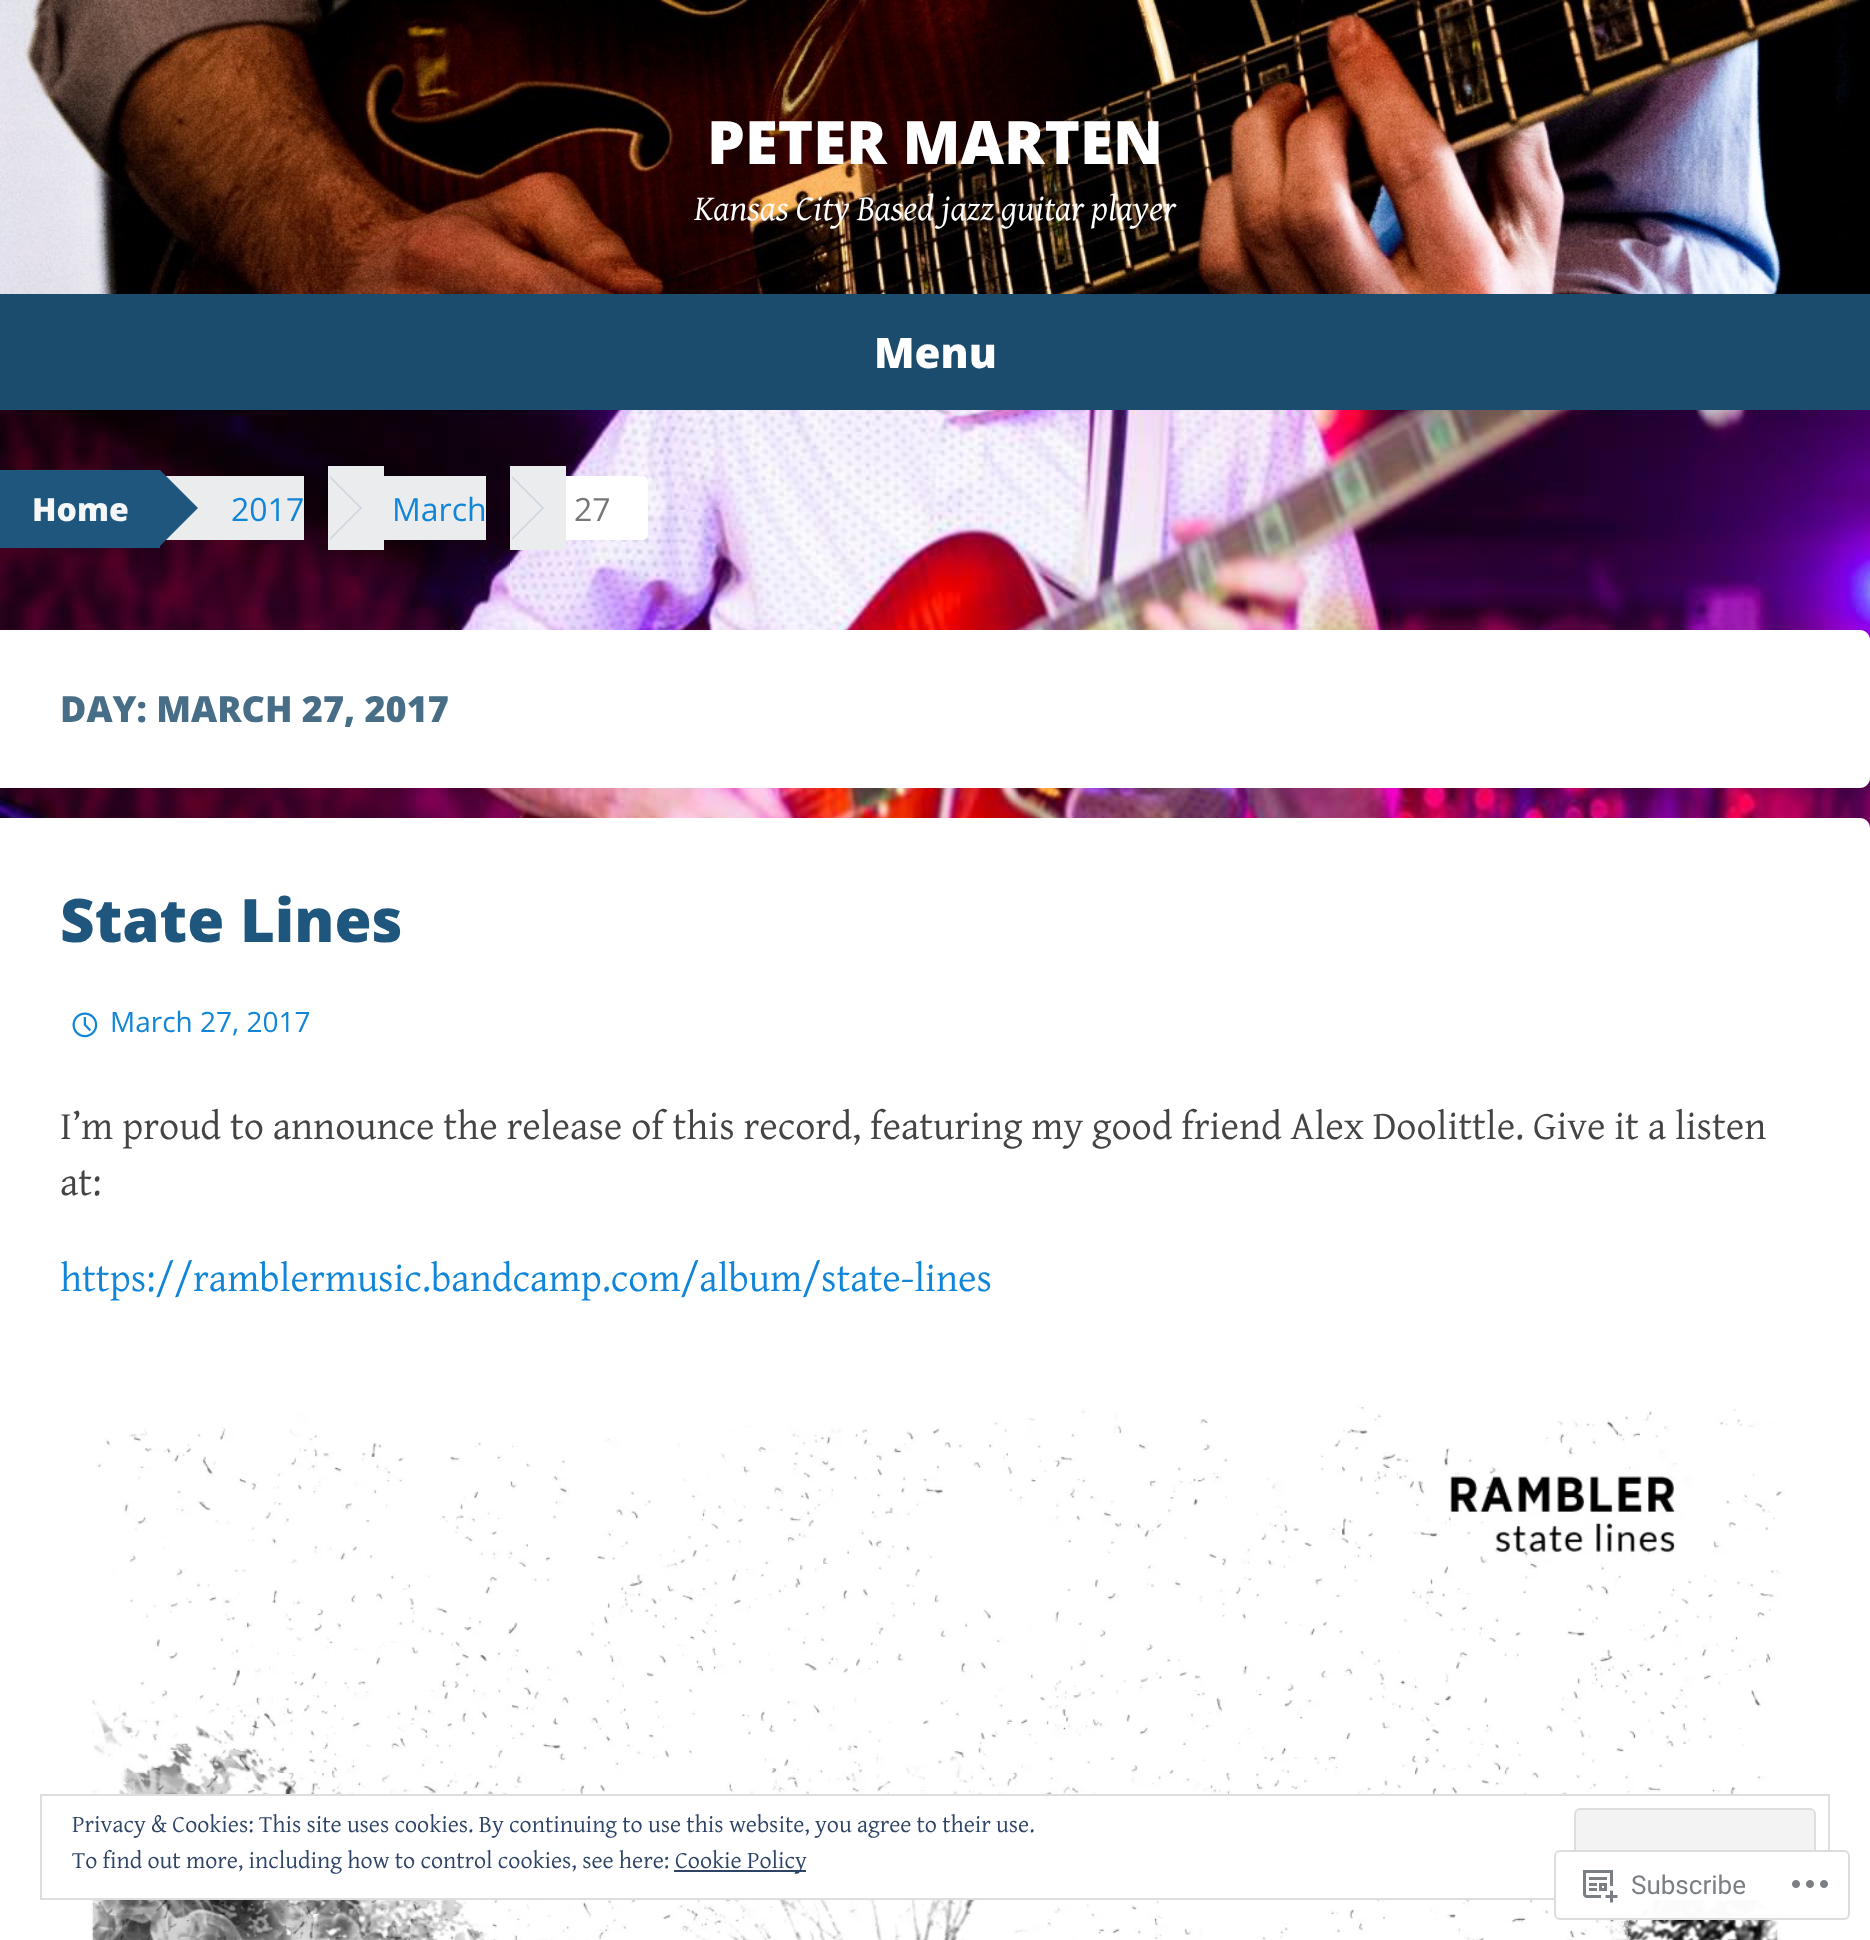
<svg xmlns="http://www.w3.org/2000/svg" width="1870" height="1940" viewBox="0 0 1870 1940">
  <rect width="100%" height="100%" fill="#fff"/>
  <image x="0" y="410" width="1870" height="418" href="img/1.png"/>
  <image x="0" y="0" width="1870" height="294" href="img/2.png"/>
  <path d="M0 294h1870v116H0z" fill="#1b4b6d"/>
  <path d="M0 470h160v78H0z" fill="#1f567d"/>
  <path d="M166 476h138v64H166z" fill="#eaecee"/>
  <path d="M160 546V470L198 508Z" fill="#1f567d"/>
  <path d="M328 466h56v84H328z" fill="#eaecee"/>
  <path d="M330 540V476L362 508Z" fill="#cad4dc"/>
  <path d="M328 540V476L360 508Z" fill="#eaecee"/>
  <path d="M384 476h102v64H384z" fill="#eaecee"/>
  <path d="M510 466h56v84H510z" fill="#eaecee"/>
  <path d="M512 540V476L544 508Z" fill="#cad4dc"/>
  <path d="M510 540V476L542 508Z" fill="#eaecee"/>
  <path d="M566 476h8v64H566z" fill="#fff"/>
  <path d="M574 476H642C645.5 476 648 478.5 648 482V534C648 537.5 645.5 540 642 540H574Z" fill="#fff"/>
  <path d="M0 630H1860C1865.5 630 1870 634.5 1870 640V778C1870 783.5 1865.5 788 1860 788H0Z" fill="#fff"/>
  <path d="M0 818H1860C1865.5 818 1870 822.5 1870 828V1940C1870 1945.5 1865.5 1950 1860 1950H0Z" fill="#fff"/>
  <image x="72" y="1012" width="26" height="26" href="img/3.png"/>
  <image x="89" y="1406" width="1697" height="534" href="img/4.png"/>
  <path d="M89 1796h1692v102H89z" fill="#fff"/>
  <path d="M41 1795h1788v104H41z" fill="none" stroke="#dedede" stroke-width="2"/>
  <rect x="1575" y="1809" width="240" height="76" rx="5" fill="#f3f3f3" stroke="#dedede" stroke-width="2"/>
  <path d="M674 1870h132v2H674z" fill="#2e4467"/>
  <rect x="1554" y="1850" width="296" height="70" rx="6" fill="#fffffffa"/>
  <rect x="1555" y="1851" width="294" height="68" rx="5" fill="none" stroke="#dcdcdefa" stroke-width="2"/>
  <image x="1583" y="1870" width="35" height="33" href="img/5.png"/>
  <image x="1792" y="1880" width="36" height="8" href="img/6.png"/>
  <text x="707" y="164" font-family="Open Sans" font-size="60" font-weight="800" fill="#fff">PETER MARTEN</text>
  <text x="694" y="220" font-family="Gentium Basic" font-size="36" font-style="italic" fill="#fff">Kansas City Based jazz guitar player</text>
  <text x="874" y="368" font-family="Open Sans" font-size="42" font-weight="800" fill="#fff">Menu</text>
  <text x="32" y="521" font-family="Open Sans" font-size="32" font-weight="800" fill="#f5f6f7">Home</text>
  <g font-family="Open Sans" font-size="32" fill="#1185d7">
    <text x="231" y="521">2017</text>
    <text x="392" y="521">March</text>
  </g>
  <text x="574" y="521" font-family="Open Sans" font-size="32" fill="#777">27</text>
  <text x="60" y="722" font-family="Open Sans" font-size="36" font-weight="800" fill="#486d87">DAY: MARCH 27, 2017</text>
  <text x="60" y="942" font-family="Open Sans" font-size="60" font-weight="800" fill="#1f567d">State Lines</text>
  <text x="110" y="1032" font-family="Open Sans" font-size="28" fill="#1185d7">March 27, 2017</text>
  <g font-family="Gentium Basic" font-size="40" fill="#444">
    <text x="60" y="1139">I’m proud to announce the release of this record, featuring my good friend Alex Doolittle. Give it a listen</text>
    <text x="60" y="1195">at:</text>
  </g>
  <text x="60" y="1291" font-family="Gentium Basic" font-size="40" fill="#1185d7">https://ramblermusic.bandcamp.com/album/state-lines</text>
  <g font-family="Gentium Basic" font-size="24" fill="#2e4467">
    <text x="72" y="1832">Privacy &amp; Cookies: This site uses cookies. By continuing to use this website, you agree to their use.</text>
    <text x="72" y="1868">To find out more, including how to control cookies, see here:</text>
    <text x="675" y="1868">Cookie Policy</text>
  </g>
  <text x="1631" y="1894" font-family="Roboto" font-size="26" fill="#7b7f84">Subscribe</text>
</svg>
